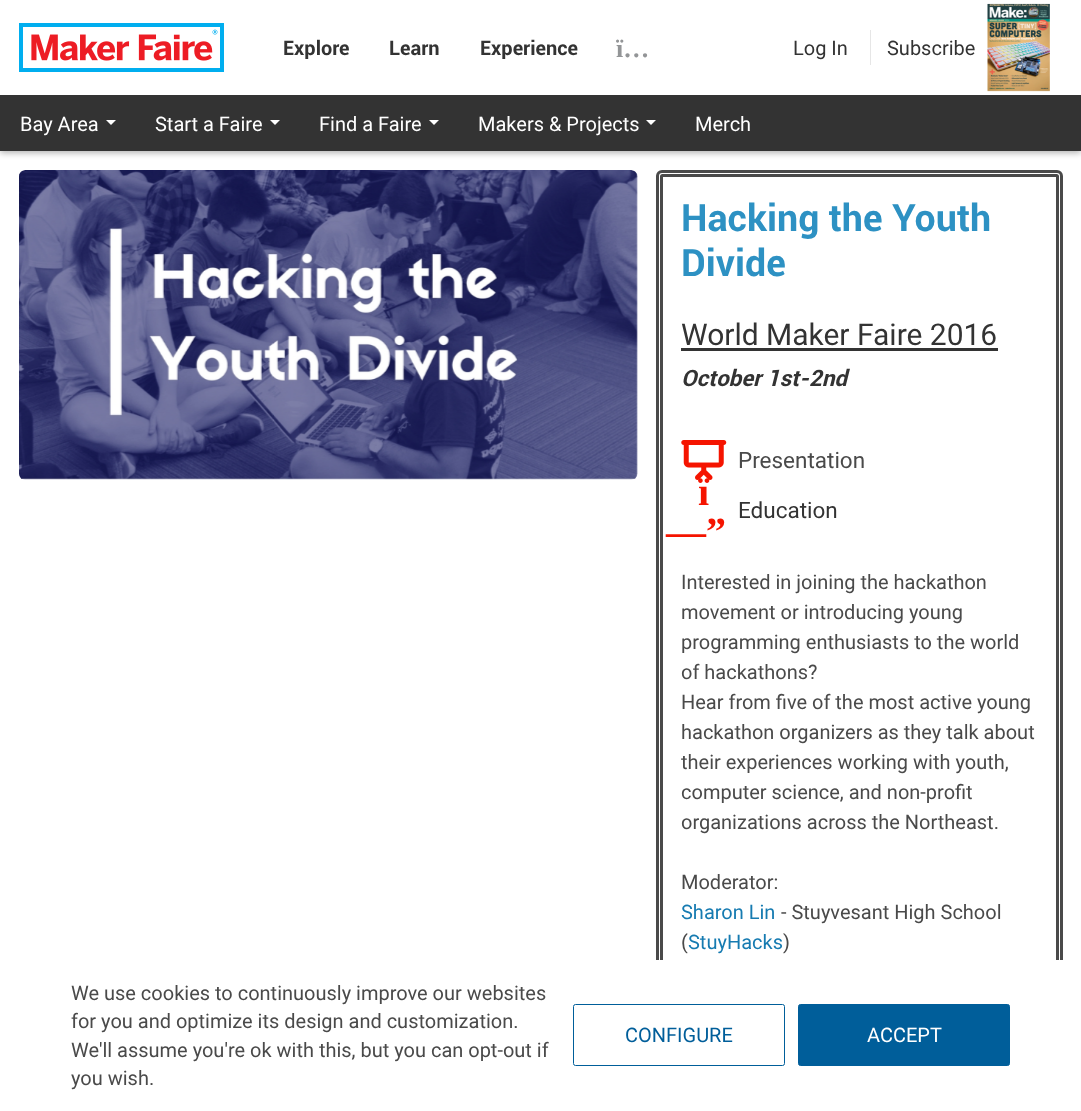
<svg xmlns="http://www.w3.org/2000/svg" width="1081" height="1111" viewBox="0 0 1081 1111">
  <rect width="100%" height="100%" fill="#fff"/>
  <path d="M0 1h1081v152H0z" fill="#0000004d" filter="blur(3px)"/>
  <path d="M0 95h1081v56H0z" fill="#333"/>
  <path d="M0 0h1081v95H0z" fill="#fff"/>
  <image x="19" y="23" width="205" height="49" href="img/1.png"/>
  <path d="M870 30h1v35H870z" fill="#e6e6e6"/>
  <image x="987" y="3" width="63" height="89" href="img/2.png"/>
  <path d="M106 120H116L111 125Z" fill="#fff"/>
  <path d="M270 120H280L275 125Z" fill="#fff"/>
  <path d="M429 120H439L434 125Z" fill="#fff"/>
  <path d="M646 120H656L651 125Z" fill="#fff"/>
  <image x="19" y="170" width="619" height="310" href="img/3.png"/>
  <rect x="657.5" y="171.5" width="404" height="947" rx="4.5" fill="none" stroke="#4a4a4a" stroke-width="3"/>
  <rect x="661.5" y="175.5" width="396" height="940" rx="1" fill="none" stroke="#4a4a4a" stroke-width="3"/>
  <path d="M681 348h317v3H681z" fill="#333"/>
  <image x="681" y="440" width="46" height="40" href="img/4.png"/>
  <path d="M656 960h407v151H656z" fill="#fff"/>
  <rect x="573.5" y="1004.5" width="211" height="61" rx="2" fill="none" stroke="#005e9a"/>
  <rect x="798.5" y="1004.5" width="211" height="61" rx="2" fill="#005e9a" stroke="#005e9a"/>
  <g font-family="Roboto" font-size="20" font-weight="bold" fill="#333">
    <text x="283" y="55">Explore</text>
    <text x="389" y="55">Learn</text>
    <text x="480" y="55">Experience</text>
  </g>
  <text x="616" y="57" font-family="Liberation Serif" font-size="26" font-weight="bold" fill="#939597">ï…</text>
  <g font-family="Roboto" font-size="20" fill="#333">
    <text x="793" y="55">Log In</text>
    <text x="887" y="55">Subscribe</text>
  </g>
  <g font-family="Roboto" font-size="20" fill="#fff">
    <text x="20" y="131">Bay Area</text>
    <text x="155" y="131">Start a Faire</text>
    <text x="319" y="131">Find a Faire</text>
    <text x="478" y="131">Makers &amp; Projects</text>
    <text x="695" y="131">Merch</text>
  </g>
  <g font-family="Roboto" font-size="37.5" font-weight="bold" fill="#2d91c3">
    <text x="681" y="231">Hacking the Youth</text>
    <text x="681" y="276">Divide</text>
  </g>
  <text x="681" y="345" font-family="Roboto" font-size="30" fill="#333">World Maker Faire 2016</text>
  <text x="681" y="386" font-family="Roboto" font-size="22.5" font-weight="bold" font-style="italic" fill="#333">October 1st-2nd</text>
  <text x="738" y="468" font-family="'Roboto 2'" font-size="22.5" fill="#4a4a4a">Presentation</text>
  <g font-family="Liberation Serif" font-size="40" font-weight="bold" fill="#f51400">
    <text x="698" y="505">ï</text>
    <text x="666" y="545">—”</text>
  </g>
  <text x="738" y="518" font-family="'Roboto 2'" font-size="22.5" fill="#333">Education</text>
  <g font-family="Roboto" font-size="20" fill="#4a4a4a">
    <text x="681" y="589">Interested in joining the hackathon</text>
    <text x="681" y="619">movement or introducing young</text>
    <text x="681" y="649">programming enthusiasts to the world</text>
    <text x="681" y="679">of hackathons?</text>
    <text x="681" y="709">Hear from five of the most active young</text>
    <text x="681" y="739">hackathon organizers as they talk about</text>
    <text x="681" y="769">their experiences working with youth,</text>
    <text x="681" y="799">computer science, and non-profit</text>
    <text x="681" y="829">organizations across the Northeast.</text>
    <text x="681" y="889">Moderator:</text>
  </g>
  <text x="681" y="919" font-family="Roboto" font-size="20" fill="#167bb1">Sharon Lin</text>
  <g font-family="Roboto" font-size="20" fill="#4a4a4a">
    <text x="781" y="919">- Stuyvesant High School</text>
    <text x="681" y="949">(</text>
  </g>
  <text x="688" y="949" font-family="Roboto" font-size="20" fill="#167bb1">StuyHacks</text>
  <g font-family="Roboto" font-size="20" fill="#4a4a4a">
    <text x="783" y="949">)</text>
    <text x="71" y="1000">We use cookies to continuously improve our websites</text>
    <text x="71" y="1028">for you and optimize its design and customization.</text>
    <text x="71" y="1057">We'll assume you're ok with this, but you can opt-out if</text>
    <text x="71" y="1085">you wish.</text>
  </g>
  <text x="625" y="1042" font-family="Roboto" font-size="20" fill="#005e9a">CONFIGURE</text>
  <text x="867" y="1042" font-family="Roboto" font-size="20" fill="#fff">ACCEPT</text>
</svg>
